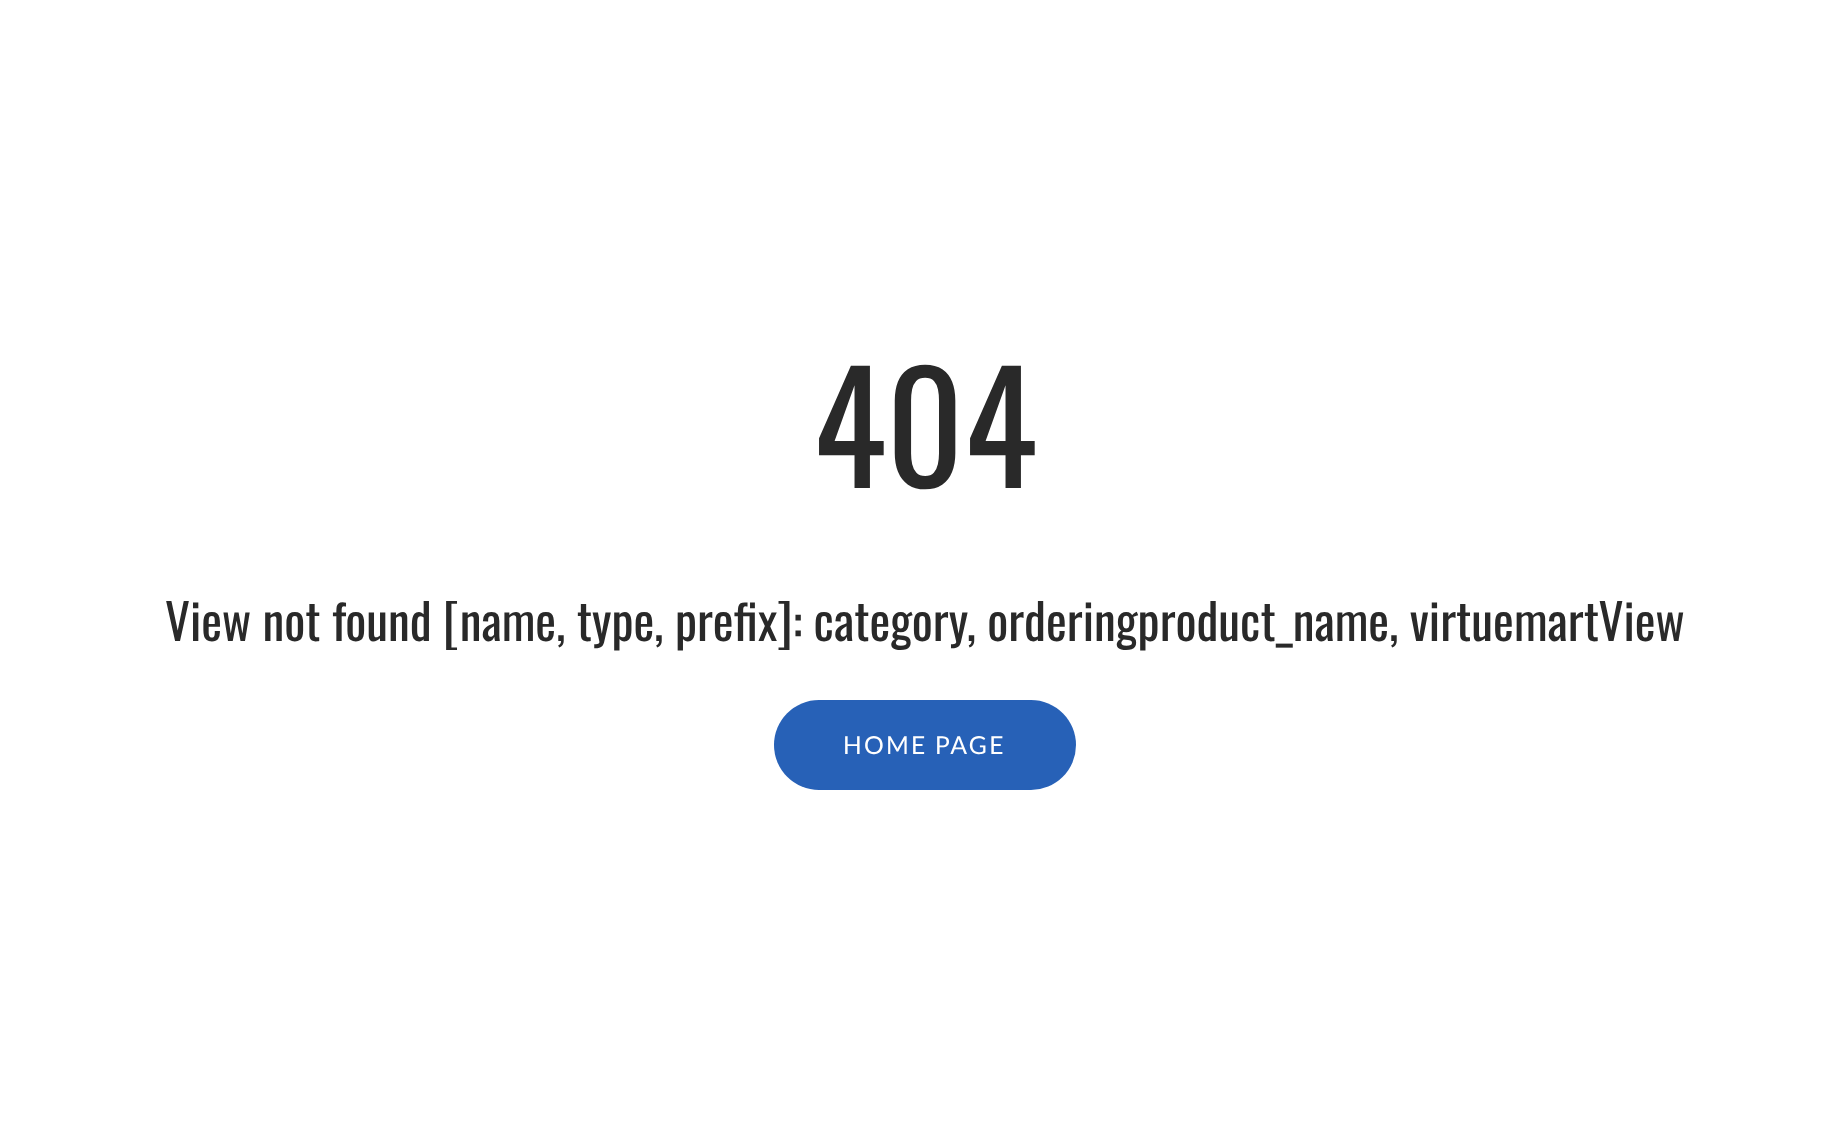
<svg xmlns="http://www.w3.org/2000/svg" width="1848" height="1132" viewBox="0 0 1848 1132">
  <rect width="100%" height="100%" fill="#fff"/>
  <rect x="774" y="700" width="302" height="90" rx="45" fill="#2761b7"/>
  <text x="813" y="488" font-family="Oswald" font-size="151" fill="#292929">404</text>
  <text x="165" y="641" font-family="Oswald" font-size="49.5" fill="#292929">View not found [name, type, prefix]: category, orderingproduct_name, virtuemartView</text>
  <text x="843" y="754" font-family="Lato" font-size="24.75" letter-spacing="2.25" fill="#fff">HOME PAGE</text>
</svg>
